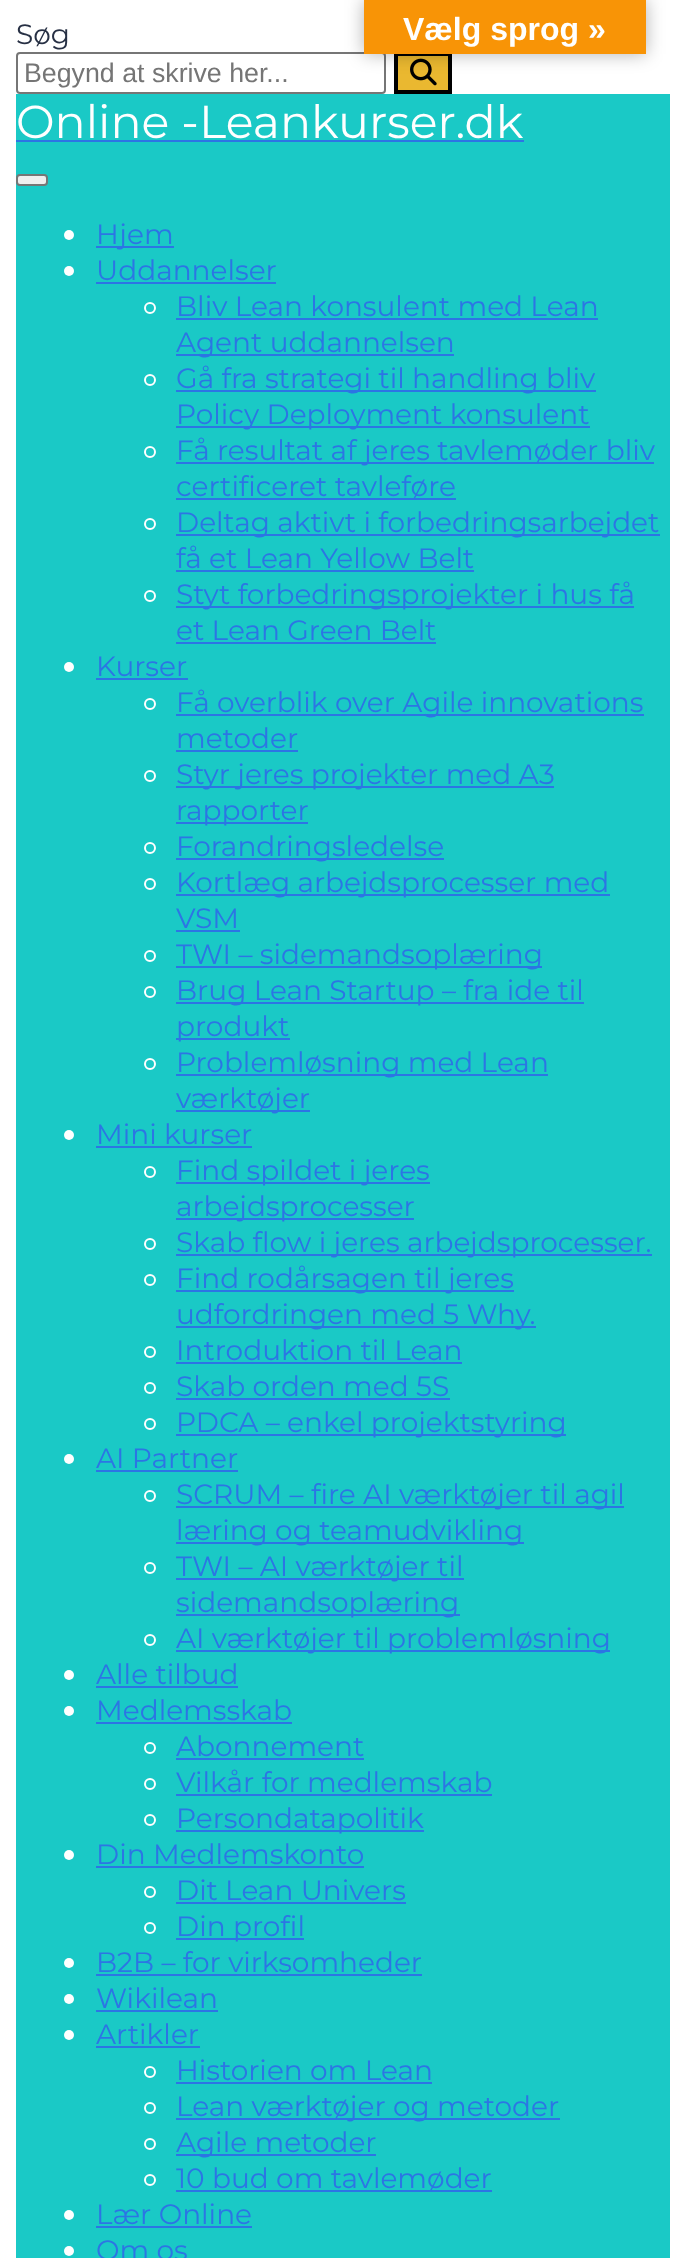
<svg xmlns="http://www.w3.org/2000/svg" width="686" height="2258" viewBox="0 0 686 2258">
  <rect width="100%" height="100%" fill="#fff"/>
  <rect x="17" y="53" width="368" height="40" rx="3" fill="none" stroke="#767676" stroke-width="2"/>
  <path d="M396 54h54v38H396z" fill="#eab830" stroke="#000" stroke-width="4"/>
  <image x="410" y="58" width="27" height="28" href="img/1.png"/>
  <path d="M364 0h282v54H364z" fill="#0000004d" filter="blur(9px)"/>
  <path d="M364 0h282v54H364z" fill="#f89406"/>
  <path d="M16 94h654v2164H16z" fill="#1ac9c6"/>
  <path d="M16 140h508v2H16z" fill="#2c75e4"/>
  <rect x="17" y="175" width="30" height="10" rx="3" fill="#efefef" stroke="#767676" stroke-width="2"/>
  <circle cx="69" cy="235" r="5" fill="#fff"/>
  <path d="M96 246h78v2H96z" fill="#2c75e4"/>
  <circle cx="69" cy="271" r="5" fill="#fff"/>
  <path d="M96 282h180v2H96z" fill="#2c75e4"/>
  <circle cx="150" cy="308" r="5" fill="none" stroke="#fff" stroke-width="2"/>
  <path d="M176 318h422v2H176z" fill="#2c75e4"/>
  <path d="M176 354h278v2H176z" fill="#2c75e4"/>
  <circle cx="150" cy="380" r="5" fill="none" stroke="#fff" stroke-width="2"/>
  <path d="M176 390h420v2H176z" fill="#2c75e4"/>
  <path d="M176 426h414v2H176z" fill="#2c75e4"/>
  <circle cx="150" cy="452" r="5" fill="none" stroke="#fff" stroke-width="2"/>
  <path d="M176 462h478v2H176z" fill="#2c75e4"/>
  <path d="M176 498h280v2H176z" fill="#2c75e4"/>
  <circle cx="150" cy="524" r="5" fill="none" stroke="#fff" stroke-width="2"/>
  <path d="M176 534h484v2H176z" fill="#2c75e4"/>
  <path d="M176 570h298v2H176z" fill="#2c75e4"/>
  <circle cx="150" cy="596" r="5" fill="none" stroke="#fff" stroke-width="2"/>
  <path d="M176 606h458v2H176z" fill="#2c75e4"/>
  <path d="M176 642h260v2H176z" fill="#2c75e4"/>
  <circle cx="69" cy="667" r="5" fill="#fff"/>
  <path d="M96 678h92v2H96z" fill="#2c75e4"/>
  <circle cx="150" cy="704" r="5" fill="none" stroke="#fff" stroke-width="2"/>
  <path d="M176 714h468v2H176z" fill="#2c75e4"/>
  <path d="M176 750h122v2H176z" fill="#2c75e4"/>
  <circle cx="150" cy="776" r="5" fill="none" stroke="#fff" stroke-width="2"/>
  <path d="M176 786h378v2H176z" fill="#2c75e4"/>
  <path d="M176 822h132v2H176z" fill="#2c75e4"/>
  <circle cx="150" cy="848" r="5" fill="none" stroke="#fff" stroke-width="2"/>
  <path d="M176 858h268v2H176z" fill="#2c75e4"/>
  <circle cx="150" cy="884" r="5" fill="none" stroke="#fff" stroke-width="2"/>
  <path d="M176 894h434v2H176z" fill="#2c75e4"/>
  <path d="M176 930h64v2H176z" fill="#2c75e4"/>
  <circle cx="150" cy="956" r="5" fill="none" stroke="#fff" stroke-width="2"/>
  <path d="M176 966h366v2H176z" fill="#2c75e4"/>
  <circle cx="150" cy="992" r="5" fill="none" stroke="#fff" stroke-width="2"/>
  <path d="M176 1002h408v2H176z" fill="#2c75e4"/>
  <path d="M176 1038h114v2H176z" fill="#2c75e4"/>
  <circle cx="150" cy="1064" r="5" fill="none" stroke="#fff" stroke-width="2"/>
  <path d="M176 1074h372v2H176z" fill="#2c75e4"/>
  <path d="M176 1110h134v2H176z" fill="#2c75e4"/>
  <circle cx="69" cy="1135" r="5" fill="#fff"/>
  <path d="M96 1146h156v2H96z" fill="#2c75e4"/>
  <circle cx="150" cy="1172" r="5" fill="none" stroke="#fff" stroke-width="2"/>
  <path d="M176 1182h254v2H176z" fill="#2c75e4"/>
  <path d="M176 1218h238v2H176z" fill="#2c75e4"/>
  <circle cx="150" cy="1244" r="5" fill="none" stroke="#fff" stroke-width="2"/>
  <path d="M176 1254h476v2H176z" fill="#2c75e4"/>
  <circle cx="150" cy="1280" r="5" fill="none" stroke="#fff" stroke-width="2"/>
  <path d="M176 1290h338v2H176z" fill="#2c75e4"/>
  <path d="M176 1326h360v2H176z" fill="#2c75e4"/>
  <circle cx="150" cy="1352" r="5" fill="none" stroke="#fff" stroke-width="2"/>
  <path d="M176 1362h286v2H176z" fill="#2c75e4"/>
  <circle cx="150" cy="1388" r="5" fill="none" stroke="#fff" stroke-width="2"/>
  <path d="M176 1398h274v2H176z" fill="#2c75e4"/>
  <circle cx="150" cy="1424" r="5" fill="none" stroke="#fff" stroke-width="2"/>
  <path d="M176 1434h390v2H176z" fill="#2c75e4"/>
  <circle cx="69" cy="1459" r="5" fill="#fff"/>
  <path d="M96 1470h142v2H96z" fill="#2c75e4"/>
  <circle cx="150" cy="1496" r="5" fill="none" stroke="#fff" stroke-width="2"/>
  <path d="M176 1506h448v2H176z" fill="#2c75e4"/>
  <path d="M176 1542h348v2H176z" fill="#2c75e4"/>
  <circle cx="150" cy="1568" r="5" fill="none" stroke="#fff" stroke-width="2"/>
  <path d="M176 1578h288v2H176z" fill="#2c75e4"/>
  <path d="M176 1614h284v2H176z" fill="#2c75e4"/>
  <circle cx="150" cy="1640" r="5" fill="none" stroke="#fff" stroke-width="2"/>
  <path d="M176 1650h434v2H176z" fill="#2c75e4"/>
  <circle cx="69" cy="1675" r="5" fill="#fff"/>
  <path d="M96 1686h142v2H96z" fill="#2c75e4"/>
  <circle cx="69" cy="1711" r="5" fill="#fff"/>
  <path d="M96 1722h196v2H96z" fill="#2c75e4"/>
  <circle cx="150" cy="1748" r="5" fill="none" stroke="#fff" stroke-width="2"/>
  <path d="M176 1758h188v2H176z" fill="#2c75e4"/>
  <circle cx="150" cy="1784" r="5" fill="none" stroke="#fff" stroke-width="2"/>
  <path d="M176 1794h316v2H176z" fill="#2c75e4"/>
  <circle cx="150" cy="1820" r="5" fill="none" stroke="#fff" stroke-width="2"/>
  <path d="M176 1830h248v2H176z" fill="#2c75e4"/>
  <circle cx="69" cy="1855" r="5" fill="#fff"/>
  <path d="M96 1866h268v2H96z" fill="#2c75e4"/>
  <circle cx="150" cy="1892" r="5" fill="none" stroke="#fff" stroke-width="2"/>
  <path d="M176 1902h230v2H176z" fill="#2c75e4"/>
  <circle cx="150" cy="1928" r="5" fill="none" stroke="#fff" stroke-width="2"/>
  <path d="M176 1938h128v2H176z" fill="#2c75e4"/>
  <circle cx="69" cy="1963" r="5" fill="#fff"/>
  <path d="M96 1974h326v2H96z" fill="#2c75e4"/>
  <circle cx="69" cy="1999" r="5" fill="#fff"/>
  <path d="M96 2010h122v2H96z" fill="#2c75e4"/>
  <circle cx="69" cy="2035" r="5" fill="#fff"/>
  <path d="M96 2046h104v2H96z" fill="#2c75e4"/>
  <circle cx="150" cy="2072" r="5" fill="none" stroke="#fff" stroke-width="2"/>
  <path d="M176 2082h256v2H176z" fill="#2c75e4"/>
  <circle cx="150" cy="2108" r="5" fill="none" stroke="#fff" stroke-width="2"/>
  <path d="M176 2118h384v2H176z" fill="#2c75e4"/>
  <circle cx="150" cy="2144" r="5" fill="none" stroke="#fff" stroke-width="2"/>
  <path d="M176 2154h200v2H176z" fill="#2c75e4"/>
  <circle cx="150" cy="2180" r="5" fill="none" stroke="#fff" stroke-width="2"/>
  <path d="M176 2190h316v2H176z" fill="#2c75e4"/>
  <circle cx="69" cy="2215" r="5" fill="#fff"/>
  <path d="M96 2226h156v2H96z" fill="#2c75e4"/>
  <circle cx="69" cy="2251" r="5" fill="#fff"/>
  <text x="16" y="44" font-family="Montserrat" font-size="28" font-weight="100" fill="#273044">Søg</text>
  <text x="24" y="82" font-family="Liberation Sans" font-size="26.75" fill="#757575">Begynd at skrive her...</text>
  <text x="403" y="40" font-family="Liberation Sans" font-size="32" font-weight="bold" fill="#fff">Vælg sprog »</text>
  <text x="16" y="138" font-family="Montserrat" font-size="46" font-weight="100" fill="#fff">Online -Leankurser.dk</text>
  <g font-family="Montserrat" font-size="28" font-weight="100" fill="#2c75e4">
    <text x="96" y="244">Hjem</text>
    <text x="96" y="280">Uddannelser</text>
    <text x="176" y="316">Bliv Lean konsulent med Lean</text>
    <text x="176" y="352">Agent uddannelsen</text>
    <text x="176" y="388">Gå fra strategi til handling bliv</text>
    <text x="176" y="424">Policy Deployment konsulent</text>
    <text x="176" y="460">Få resultat af jeres tavlemøder bliv</text>
    <text x="176" y="496">certificeret tavleføre</text>
    <text x="176" y="532">Deltag aktivt i forbedringsarbejdet</text>
    <text x="176" y="568">få et Lean Yellow Belt</text>
    <text x="176" y="604">Styt forbedringsprojekter i hus få</text>
    <text x="176" y="640">et Lean Green Belt</text>
    <text x="96" y="676">Kurser</text>
    <text x="176" y="712">Få overblik over Agile innovations</text>
    <text x="176" y="748">metoder</text>
    <text x="176" y="784">Styr jeres projekter med A3</text>
    <text x="176" y="820">rapporter</text>
    <text x="176" y="856">Forandringsledelse</text>
    <text x="176" y="892">Kortlæg arbejdsprocesser med</text>
    <text x="176" y="928">VSM</text>
    <text x="176" y="964">TWI – sidemandsoplæring</text>
    <text x="176" y="1000">Brug Lean Startup – fra ide til</text>
    <text x="176" y="1036">produkt</text>
    <text x="176" y="1072">Problemløsning med Lean</text>
    <text x="176" y="1108">værktøjer</text>
    <text x="96" y="1144">Mini kurser</text>
    <text x="176" y="1180">Find spildet i jeres</text>
    <text x="176" y="1216">arbejdsprocesser</text>
    <text x="176" y="1252">Skab flow i jeres arbejdsprocesser.</text>
    <text x="176" y="1288">Find rodårsagen til jeres</text>
    <text x="176" y="1324">udfordringen med 5 Why.</text>
    <text x="176" y="1360">Introduktion til Lean</text>
    <text x="176" y="1396">Skab orden med 5S</text>
    <text x="176" y="1432">PDCA – enkel projektstyring</text>
    <text x="96" y="1468">AI Partner</text>
    <text x="176" y="1504">SCRUM – fire AI værktøjer til agil</text>
    <text x="176" y="1540">læring og teamudvikling</text>
    <text x="176" y="1576">TWI – AI værktøjer til</text>
    <text x="176" y="1612">sidemandsoplæring</text>
    <text x="176" y="1648">AI værktøjer til problemløsning</text>
    <text x="96" y="1684">Alle tilbud</text>
    <text x="96" y="1720">Medlemsskab</text>
    <text x="176" y="1756">Abonnement</text>
    <text x="176" y="1792">Vilkår for medlemskab</text>
    <text x="176" y="1828">Persondatapolitik</text>
    <text x="96" y="1864">Din Medlemskonto</text>
    <text x="176" y="1900">Dit Lean Univers</text>
    <text x="176" y="1936">Din profil</text>
    <text x="96" y="1972">B2B – for virksomheder</text>
    <text x="96" y="2008">Wikilean</text>
    <text x="96" y="2044">Artikler</text>
    <text x="176" y="2080">Historien om Lean</text>
    <text x="176" y="2116">Lean værktøjer og metoder</text>
    <text x="176" y="2152">Agile metoder</text>
    <text x="176" y="2188">10 bud om tavlemøder</text>
    <text x="96" y="2224">Lær Online</text>
    <text x="96" y="2260">Om os</text>
  </g>
</svg>
